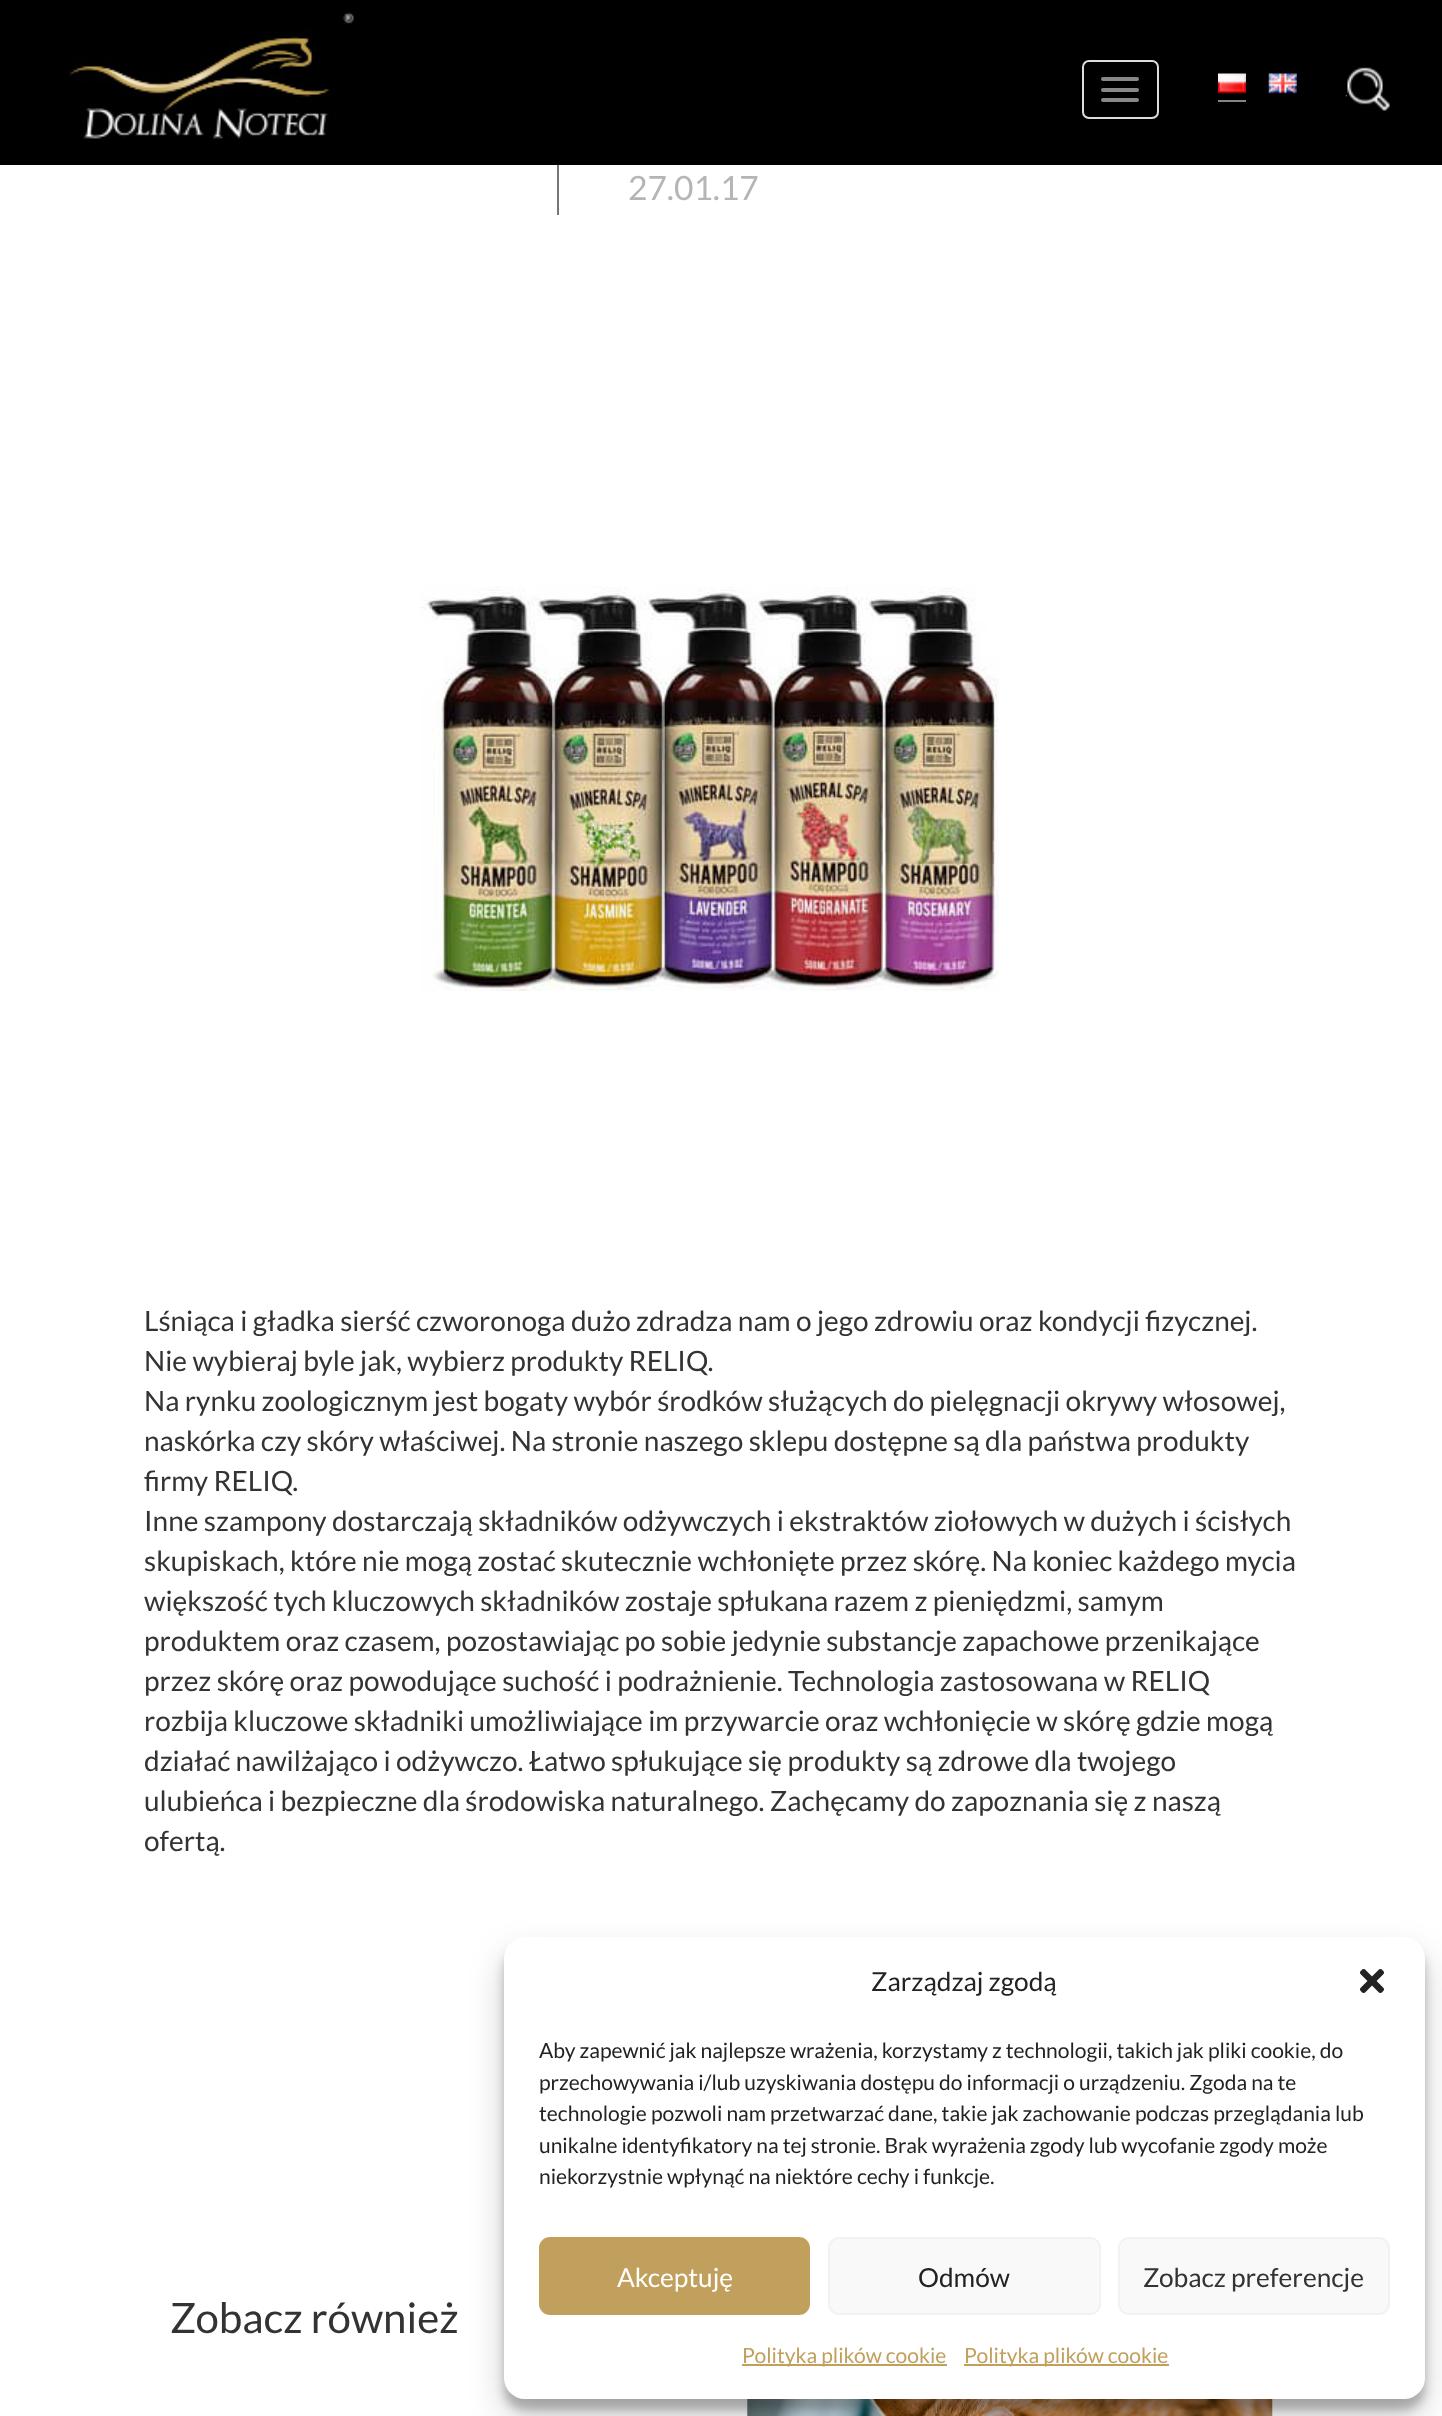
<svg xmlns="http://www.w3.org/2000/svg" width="1442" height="2416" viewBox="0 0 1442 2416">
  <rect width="100%" height="100%" fill="#fff"/>
  <path d="M0 0h1442v165H0z" fill="#000"/>
  <image x="68" y="12" width="286" height="127" href="img/1.png"/>
  <rect x="1083" y="61" width="75" height="57" rx="6" fill="none" stroke="#ddd" stroke-width="2"/>
  <rect x="1101" y="77" width="38" height="4" rx="2" fill="#888"/>
  <rect x="1101" y="88" width="38" height="4" rx="2" fill="#888"/>
  <rect x="1101" y="98" width="38" height="4" rx="2" fill="#888"/>
  <path d="M1218 100h28v2H1218z" fill="#848484"/>
  <image x="1218" y="73" width="28" height="21" href="img/2.png"/>
  <image x="1268" y="73" width="29" height="21" href="img/3.png"/>
  <image x="1345" y="95" width="2" height="2" href="img/4.png"/>
  <image x="1347" y="67" width="43" height="44" href="img/5.png"/>
  <path d="M557 165h2v50H557z" fill="#777"/>
  <image x="420" y="586" width="579" height="405" href="img/6.png"/>
  <image x="747" y="2399" width="526" height="17" href="img/7.png"/>
  <rect x="504" y="1948" width="921" height="462" rx="21" fill="#0000003b" filter="blur(5px)"/>
  <rect x="504" y="1955" width="921" height="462" rx="21" fill="#00000030" filter="blur(17.5px)"/>
  <rect x="504" y="1937" width="921" height="462" rx="21" fill="#fff"/>
  <image x="1360" y="1969" width="24" height="24" href="img/8.png"/>
  <rect x="540" y="2238" width="269" height="76" rx="10" fill="#c0a05c" stroke="#c0a05c" stroke-width="2"/>
  <rect x="829" y="2238" width="271" height="76" rx="10" fill="#f9f9f9" stroke="#f2f2f2" stroke-width="2"/>
  <rect x="1119" y="2238" width="270" height="76" rx="10" fill="#f9f9f9" stroke="#f2f2f2" stroke-width="2"/>
  <path d="M742 2364h205v2H742z" fill="#c0a05c"/>
  <path d="M964 2364h205v2H964z" fill="#c0a05c"/>
  <text x="628" y="200" font-family="Lato" font-size="33.5" fill="#b5b5b5">27.01.17</text>
  <g font-family="Lato" font-size="28" fill="#333">
    <text x="144" y="1331">Lśniąca i gładka sierść czworonoga dużo zdradza nam o jego zdrowiu oraz kondycji fizycznej.</text>
    <text x="144" y="1371">Nie wybieraj byle jak, wybierz produkty RELIQ.</text>
    <text x="144" y="1411">Na rynku zoologicznym jest bogaty wybór środków służących do pielęgnacji okrywy włosowej,</text>
    <text x="144" y="1451">naskórka czy skóry właściwej. Na stronie naszego sklepu dostępne są dla państwa produkty</text>
    <text x="144" y="1491">firmy RELIQ.</text>
    <text x="144" y="1531">Inne szampony dostarczają składników odżywczych i ekstraktów ziołowych w dużych i ścisłych</text>
    <text x="144" y="1571">skupiskach, które nie mogą zostać skutecznie wchłonięte przez skórę. Na koniec każdego mycia</text>
    <text x="144" y="1611">większość tych kluczowych składników zostaje spłukana razem z pieniędzmi, samym</text>
    <text x="144" y="1651">produktem oraz czasem, pozostawiając po sobie jedynie substancje zapachowe przenikające</text>
    <text x="144" y="1691">przez skórę oraz powodujące suchość i podrażnienie. Technologia zastosowana w RELIQ</text>
    <text x="144" y="1731">rozbija kluczowe składniki umożliwiające im przywarcie oraz wchłonięcie w skórę gdzie mogą</text>
    <text x="144" y="1771">działać nawilżająco i odżywczo. Łatwo spłukujące się produkty są zdrowe dla twojego</text>
    <text x="144" y="1811">ulubieńca i bezpieczne dla środowiska naturalnego. Zachęcamy do zapoznania się z naszą</text>
    <text x="144" y="1851">ofertą.</text>
  </g>
  <text x="170" y="2333" font-family="Lato" font-size="42" fill="#333">Zobacz również</text>
  <text x="871" y="1991" font-family="Lato" font-size="26.25" fill="#222">Zarządzaj zgodą</text>
  <g font-family="Lato" font-size="21" fill="#222">
    <text x="539" y="2058">Aby zapewnić jak najlepsze wrażenia, korzystamy z technologii, takich jak pliki cookie, do</text>
    <text x="539" y="2090">przechowywania i/lub uzyskiwania dostępu do informacji o urządzeniu. Zgoda na te</text>
    <text x="539" y="2121">technologie pozwoli nam przetwarzać dane, takie jak zachowanie podczas przeglądania lub</text>
    <text x="539" y="2153">unikalne identyfikatory na tej stronie. Brak wyrażenia zgody lub wycofanie zgody może</text>
    <text x="539" y="2184">niekorzystnie wpłynąć na niektóre cechy i funkcje.</text>
  </g>
  <text x="617" y="2287" font-family="Lato" font-size="26.25" fill="#fff">Akceptuję</text>
  <text x="918" y="2287" font-family="Lato" font-size="26.25" fill="#222">Odmów</text>
  <text x="1143" y="2287" font-family="Lato" font-size="26.25" fill="#333">Zobacz preferencje</text>
  <g font-family="Lato" font-size="21" fill="#c0a05c">
    <text x="742" y="2363">Polityka plików cookie</text>
    <text x="964" y="2363">Polityka plików cookie</text>
  </g>
</svg>
